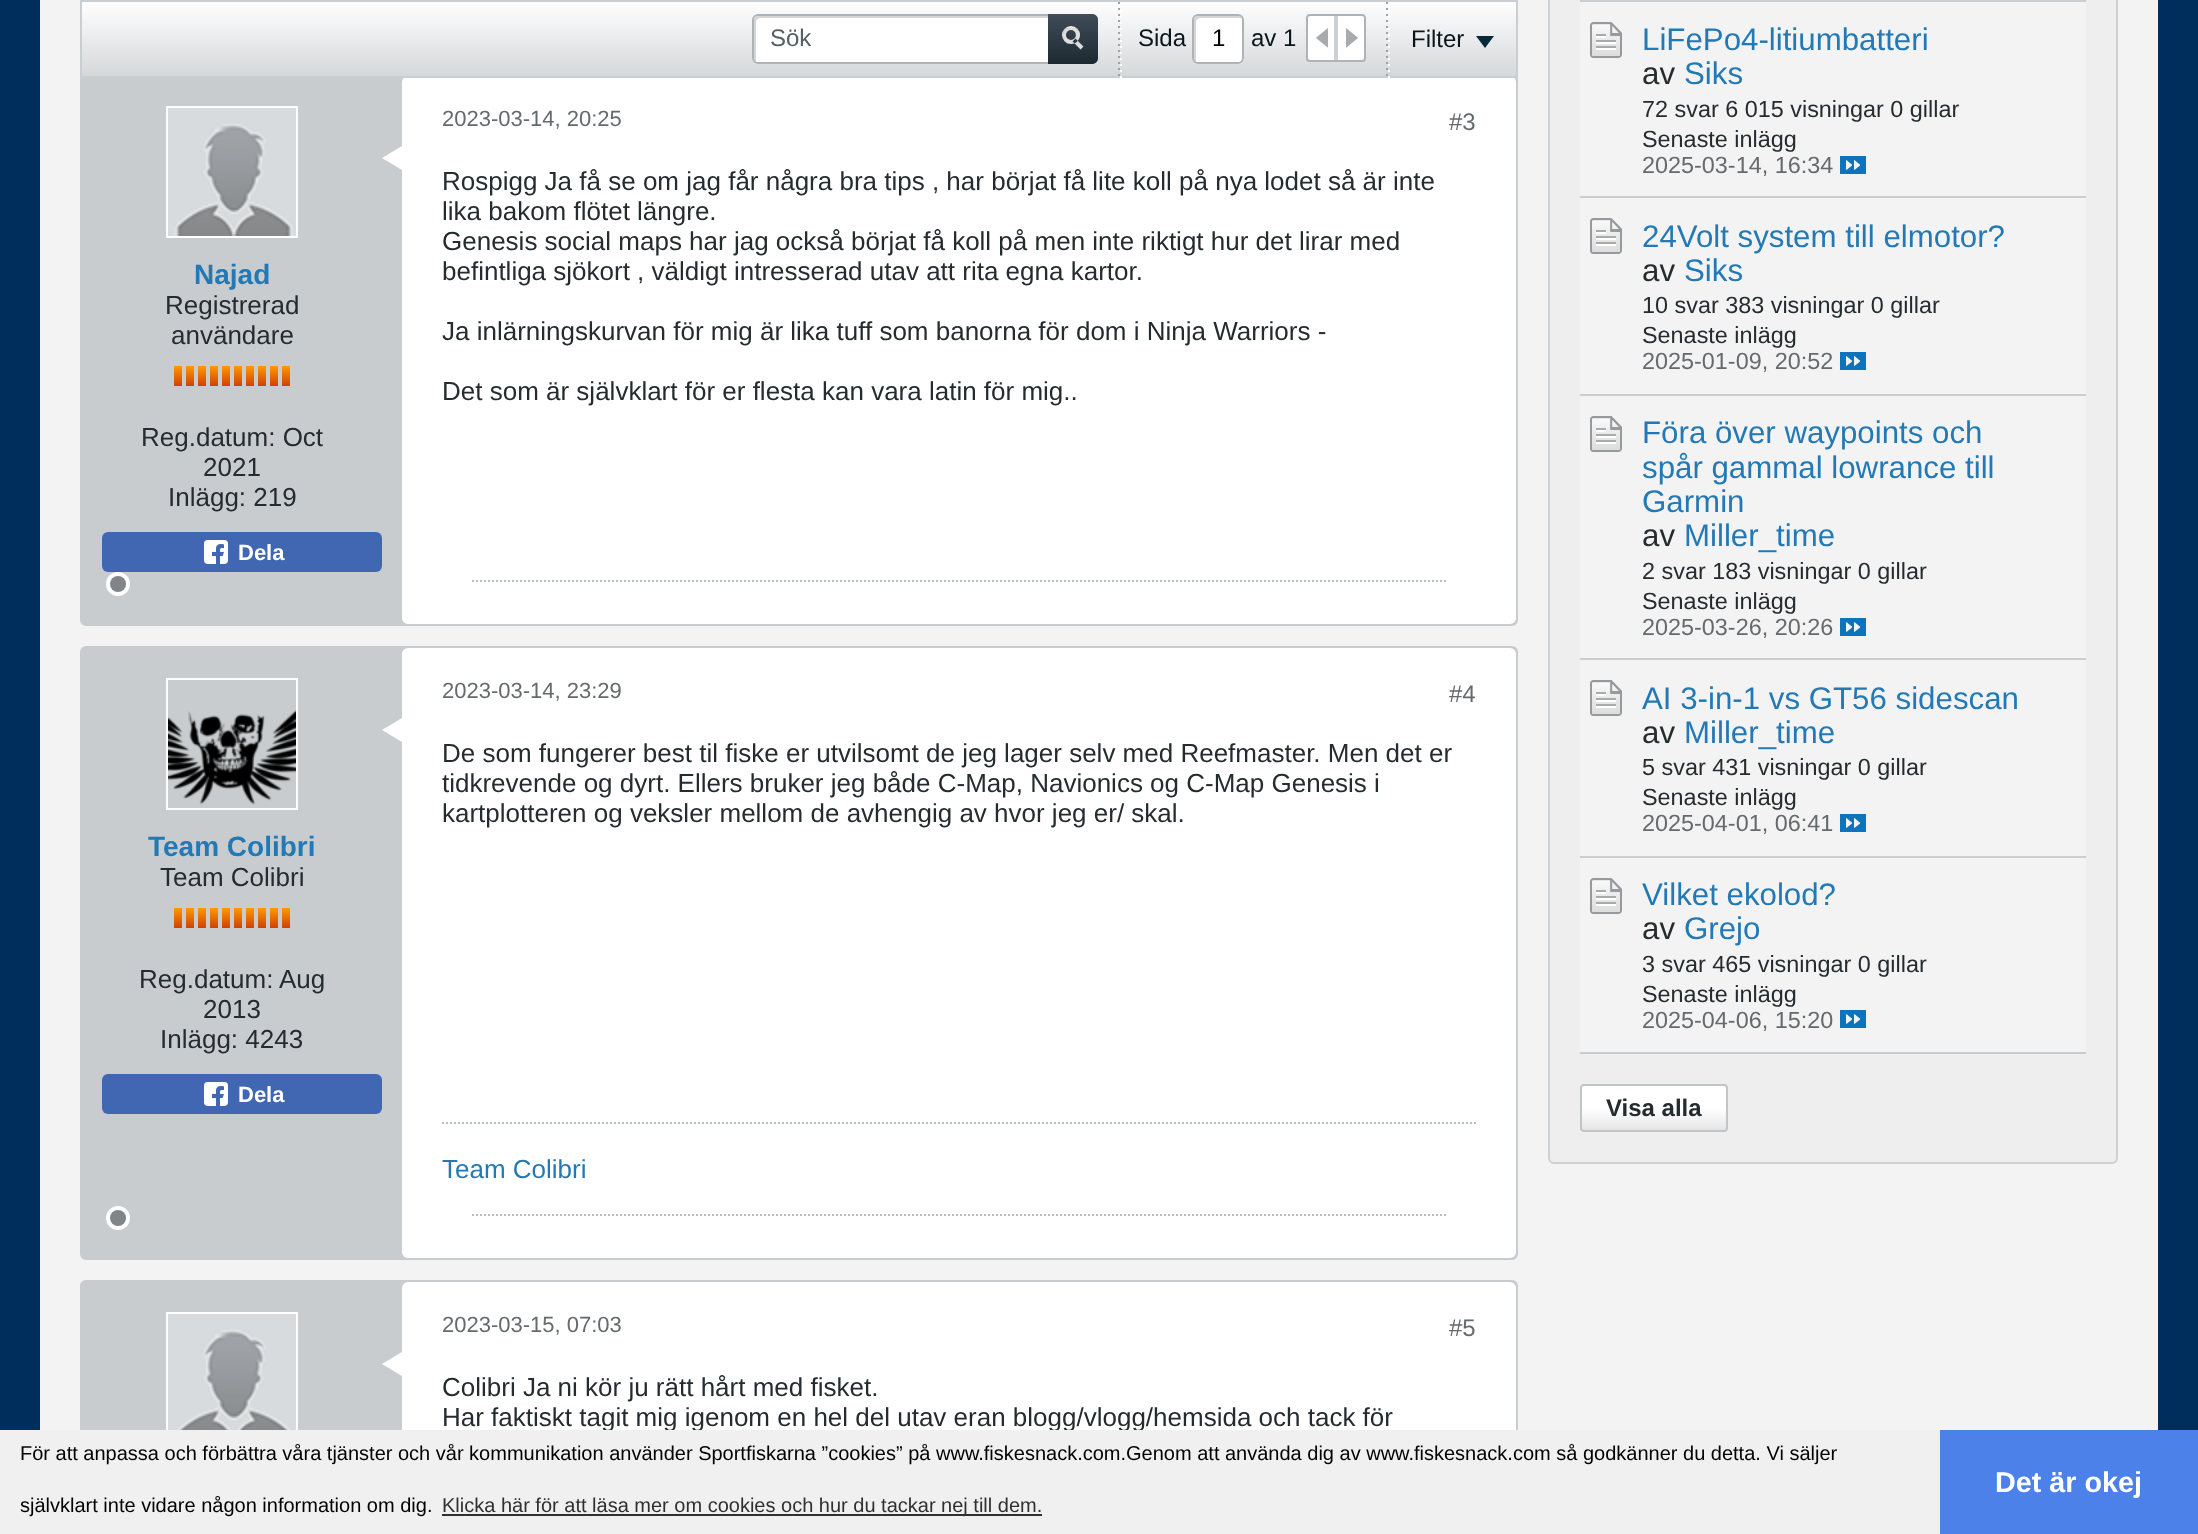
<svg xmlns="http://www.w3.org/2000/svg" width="2198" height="1534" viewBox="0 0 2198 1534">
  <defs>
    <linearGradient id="g1" gradientUnits="userSpaceOnUse" x1="799" y1="2" x2="799" y2="76"><stop offset="0" stop-color="#fefeff"/><stop offset="1" stop-color="#d5d8da"/></linearGradient>
    <linearGradient id="g2" gradientUnits="userSpaceOnUse" x1="1073" y1="14" x2="1073" y2="64"><stop offset="0" stop-color="#404d5a"/><stop offset="1" stop-color="#1c2931"/></linearGradient>
    <linearGradient id="g3" gradientUnits="userSpaceOnUse" x1="178" y1="366" x2="178" y2="386"><stop offset="0" stop-color="#f90"/><stop offset="1" stop-color="#cf4104"/></linearGradient>
    <linearGradient id="g4" gradientUnits="userSpaceOnUse" x1="190" y1="366" x2="190" y2="386"><stop offset="0" stop-color="#f90"/><stop offset="1" stop-color="#cf4104"/></linearGradient>
    <linearGradient id="g5" gradientUnits="userSpaceOnUse" x1="202" y1="366" x2="202" y2="386"><stop offset="0" stop-color="#f90"/><stop offset="1" stop-color="#cf4104"/></linearGradient>
    <linearGradient id="g6" gradientUnits="userSpaceOnUse" x1="214" y1="366" x2="214" y2="386"><stop offset="0" stop-color="#f90"/><stop offset="1" stop-color="#cf4104"/></linearGradient>
    <linearGradient id="g7" gradientUnits="userSpaceOnUse" x1="226" y1="366" x2="226" y2="386"><stop offset="0" stop-color="#f90"/><stop offset="1" stop-color="#cf4104"/></linearGradient>
    <linearGradient id="g8" gradientUnits="userSpaceOnUse" x1="238" y1="366" x2="238" y2="386"><stop offset="0" stop-color="#f90"/><stop offset="1" stop-color="#cf4104"/></linearGradient>
    <linearGradient id="g9" gradientUnits="userSpaceOnUse" x1="250" y1="366" x2="250" y2="386"><stop offset="0" stop-color="#f90"/><stop offset="1" stop-color="#cf4104"/></linearGradient>
    <linearGradient id="g10" gradientUnits="userSpaceOnUse" x1="262" y1="366" x2="262" y2="386"><stop offset="0" stop-color="#f90"/><stop offset="1" stop-color="#cf4104"/></linearGradient>
    <linearGradient id="g11" gradientUnits="userSpaceOnUse" x1="274" y1="366" x2="274" y2="386"><stop offset="0" stop-color="#f90"/><stop offset="1" stop-color="#cf4104"/></linearGradient>
    <linearGradient id="g12" gradientUnits="userSpaceOnUse" x1="286" y1="366" x2="286" y2="386"><stop offset="0" stop-color="#f90"/><stop offset="1" stop-color="#cf4104"/></linearGradient>
    <linearGradient id="g13" gradientUnits="userSpaceOnUse" x1="178" y1="908" x2="178" y2="928"><stop offset="0" stop-color="#f90"/><stop offset="1" stop-color="#cf4104"/></linearGradient>
    <linearGradient id="g14" gradientUnits="userSpaceOnUse" x1="190" y1="908" x2="190" y2="928"><stop offset="0" stop-color="#f90"/><stop offset="1" stop-color="#cf4104"/></linearGradient>
    <linearGradient id="g15" gradientUnits="userSpaceOnUse" x1="202" y1="908" x2="202" y2="928"><stop offset="0" stop-color="#f90"/><stop offset="1" stop-color="#cf4104"/></linearGradient>
    <linearGradient id="g16" gradientUnits="userSpaceOnUse" x1="214" y1="908" x2="214" y2="928"><stop offset="0" stop-color="#f90"/><stop offset="1" stop-color="#cf4104"/></linearGradient>
    <linearGradient id="g17" gradientUnits="userSpaceOnUse" x1="226" y1="908" x2="226" y2="928"><stop offset="0" stop-color="#f90"/><stop offset="1" stop-color="#cf4104"/></linearGradient>
    <linearGradient id="g18" gradientUnits="userSpaceOnUse" x1="238" y1="908" x2="238" y2="928"><stop offset="0" stop-color="#f90"/><stop offset="1" stop-color="#cf4104"/></linearGradient>
    <linearGradient id="g19" gradientUnits="userSpaceOnUse" x1="250" y1="908" x2="250" y2="928"><stop offset="0" stop-color="#f90"/><stop offset="1" stop-color="#cf4104"/></linearGradient>
    <linearGradient id="g20" gradientUnits="userSpaceOnUse" x1="262" y1="908" x2="262" y2="928"><stop offset="0" stop-color="#f90"/><stop offset="1" stop-color="#cf4104"/></linearGradient>
    <linearGradient id="g21" gradientUnits="userSpaceOnUse" x1="274" y1="908" x2="274" y2="928"><stop offset="0" stop-color="#f90"/><stop offset="1" stop-color="#cf4104"/></linearGradient>
    <linearGradient id="g22" gradientUnits="userSpaceOnUse" x1="286" y1="908" x2="286" y2="928"><stop offset="0" stop-color="#f90"/><stop offset="1" stop-color="#cf4104"/></linearGradient>
    <linearGradient id="g23" gradientUnits="userSpaceOnUse" x1="1654" y1="1130" x2="1654" y2="1086"><stop offset="0" stop-color="#000" stop-opacity="0.1"/><stop offset="0.5" stop-color="#000" stop-opacity="0"/><stop offset="0.5" stop-color="#fff" stop-opacity="0"/><stop offset="1" stop-color="#fff" stop-opacity="0.7"/></linearGradient>
  </defs>
  <rect width="100%" height="100%" fill="#002e5c"/>
  <path d="M40 0h2118v1430H40z" fill="#f3f3f3"/>
  <rect x="81" y="75" width="1436" height="550" rx="5" fill="#c8ccce" stroke="#c8ccce" stroke-width="2"/>
  <path d="M82 2h1434v74H82z" fill="url(#g1)"/>
  <rect x="402" y="76" width="1114" height="548" rx="6" fill="#fff"/>
  <path d="M81 1h1436v76H81z" fill="none" stroke="#c9ced2" stroke-width="2"/>
  <rect x="752" y="14" width="346" height="50" rx="6" fill="#fff"/>
  <path d="M760 18H1094H1096C1095 17 1094 16 1092 16H758C756 16 754 18 754 20V58C754 60 755 61 756 62V60V22C756 20 758 18 760 18Z" fill="#d5d5d5"/>
  <rect x="753" y="15" width="344" height="48" rx="5" fill="none" stroke="#aeb3b6" stroke-width="2"/>
  <path d="M1048 14H1092C1095.5 14 1098 16.5 1098 20V58C1098 61.5 1095.5 64 1092 64H1048Z" fill="url(#g2)"/>
  <image x="1062" y="26" width="22" height="24" href="img/1.png"/>
  <path d="M1118 2h2v2H1118z" fill="#9ba3a9"/>
  <path d="M1118 8h2v2H1118z" fill="#9ba3a9"/>
  <path d="M1118 14h2v2H1118z" fill="#9ba3a9"/>
  <path d="M1118 20h2v2H1118z" fill="#9ba3a9"/>
  <path d="M1118 26h2v2H1118z" fill="#9ba3a9"/>
  <path d="M1118 32h2v2H1118z" fill="#9ba3a9"/>
  <path d="M1118 38h2v2H1118z" fill="#9ba3a9"/>
  <path d="M1118 44h2v2H1118z" fill="#9ba3a9"/>
  <path d="M1118 50h2v2H1118z" fill="#9ba3a9"/>
  <path d="M1118 56h2v2H1118z" fill="#9ba3a9"/>
  <path d="M1118 62h2v2H1118z" fill="#9ba3a9"/>
  <path d="M1118 68h2v2H1118z" fill="#9ba3a9"/>
  <path d="M1118 74h2v2H1118z" fill="#9ba3a9"/>
  <path d="M1120 5h2v1H1120z" fill="#fff"/>
  <path d="M1120 10h2v2H1120z" fill="#fff"/>
  <path d="M1120 16h2v2H1120z" fill="#fff"/>
  <path d="M1120 22h2v2H1120z" fill="#fff"/>
  <path d="M1120 28h2v2H1120z" fill="#fff"/>
  <path d="M1120 34h2v2H1120z" fill="#fff"/>
  <path d="M1120 40h2v2H1120z" fill="#fff"/>
  <path d="M1120 46h2v2H1120z" fill="#fff"/>
  <path d="M1120 52h2v2H1120z" fill="#fff"/>
  <path d="M1120 58h2v2H1120z" fill="#fff"/>
  <path d="M1120 64h2v2H1120z" fill="#fff"/>
  <path d="M1120 70h2v2H1120z" fill="#fff"/>
  <path d="M1120 76h2v2H1120z" fill="#fff"/>
  <rect x="1192" y="14" width="52" height="50" rx="6" fill="#fff"/>
  <path d="M1200 18H1240H1242C1241 17 1240 16 1238 16H1198C1196 16 1194 18 1194 20V58C1194 60 1195 61 1196 62V60V22C1196 20 1198 18 1200 18Z" fill="#d5d5d5"/>
  <rect x="1193" y="15" width="50" height="48" rx="5" fill="none" stroke="#aeb3b6" stroke-width="2"/>
  <rect x="1307" y="15" width="58" height="46" rx="3" fill="#fff" stroke="#aeb3b6" stroke-width="2"/>
  <path d="M1334 16h4v44H1334z" fill="#cdd1d4"/>
  <image x="1316" y="28" width="12" height="20" href="img/2.png"/>
  <image x="1346" y="28" width="12" height="20" href="img/3.png"/>
  <path d="M1386 2h2v2H1386z" fill="#9ba3a9"/>
  <path d="M1386 8h2v2H1386z" fill="#9ba3a9"/>
  <path d="M1386 14h2v2H1386z" fill="#9ba3a9"/>
  <path d="M1386 20h2v2H1386z" fill="#9ba3a9"/>
  <path d="M1386 26h2v2H1386z" fill="#9ba3a9"/>
  <path d="M1386 32h2v2H1386z" fill="#9ba3a9"/>
  <path d="M1386 38h2v2H1386z" fill="#9ba3a9"/>
  <path d="M1386 44h2v2H1386z" fill="#9ba3a9"/>
  <path d="M1386 50h2v2H1386z" fill="#9ba3a9"/>
  <path d="M1386 56h2v2H1386z" fill="#9ba3a9"/>
  <path d="M1386 62h2v2H1386z" fill="#9ba3a9"/>
  <path d="M1386 68h2v2H1386z" fill="#9ba3a9"/>
  <path d="M1386 74h2v2H1386z" fill="#9ba3a9"/>
  <path d="M1388 5h2v1H1388z" fill="#fff"/>
  <path d="M1388 10h2v2H1388z" fill="#fff"/>
  <path d="M1388 16h2v2H1388z" fill="#fff"/>
  <path d="M1388 22h2v2H1388z" fill="#fff"/>
  <path d="M1388 28h2v2H1388z" fill="#fff"/>
  <path d="M1388 34h2v2H1388z" fill="#fff"/>
  <path d="M1388 40h2v2H1388z" fill="#fff"/>
  <path d="M1388 46h2v2H1388z" fill="#fff"/>
  <path d="M1388 52h2v2H1388z" fill="#fff"/>
  <path d="M1388 58h2v2H1388z" fill="#fff"/>
  <path d="M1388 64h2v2H1388z" fill="#fff"/>
  <path d="M1388 70h2v2H1388z" fill="#fff"/>
  <path d="M1388 76h2v2H1388z" fill="#fff"/>
  <image x="1476" y="36" width="18" height="12" href="img/4.png"/>
  <path d="M167 107h130v130H167z" fill="none" stroke="#fff" stroke-width="2"/>
  <image x="168" y="108" width="128" height="128" href="img/5.png"/>
  <path d="M174 366h8v20H174z" fill="url(#g3)"/>
  <path d="M186 366h8v20H186z" fill="url(#g4)"/>
  <path d="M198 366h8v20H198z" fill="url(#g5)"/>
  <path d="M210 366h8v20H210z" fill="url(#g6)"/>
  <path d="M222 366h8v20H222z" fill="url(#g7)"/>
  <path d="M234 366h8v20H234z" fill="url(#g8)"/>
  <path d="M246 366h8v20H246z" fill="url(#g9)"/>
  <path d="M258 366h8v20H258z" fill="url(#g10)"/>
  <path d="M270 366h8v20H270z" fill="url(#g11)"/>
  <path d="M282 366h8v20H282z" fill="url(#g12)"/>
  <image x="106" y="572" width="24" height="24" href="img/6.png"/>
  <rect x="102" y="532" width="280" height="40" rx="6" fill="#4267b2"/>
  <image x="204" y="540" width="24" height="24" href="img/7.png"/>
  <path d="M402 146V170L382 158Z" fill="#fff"/>
  <path d="M472 581H1446" fill="none" stroke="#b7bcbe" stroke-width="2" stroke-dasharray="2 2"/>
  <rect x="81" y="647" width="1436" height="612" rx="5" fill="#c8ccce" stroke="#c8ccce" stroke-width="2"/>
  <path d="M167 679h130v130H167z" fill="none" stroke="#fff" stroke-width="2"/>
  <image x="168" y="710" width="128" height="95" href="img/8.png"/>
  <path d="M174 908h8v20H174z" fill="url(#g13)"/>
  <path d="M186 908h8v20H186z" fill="url(#g14)"/>
  <path d="M198 908h8v20H198z" fill="url(#g15)"/>
  <path d="M210 908h8v20H210z" fill="url(#g16)"/>
  <path d="M222 908h8v20H222z" fill="url(#g17)"/>
  <path d="M234 908h8v20H234z" fill="url(#g18)"/>
  <path d="M246 908h8v20H246z" fill="url(#g19)"/>
  <path d="M258 908h8v20H258z" fill="url(#g20)"/>
  <path d="M270 908h8v20H270z" fill="url(#g21)"/>
  <path d="M282 908h8v20H282z" fill="url(#g22)"/>
  <image x="106" y="1206" width="24" height="24" href="img/6.png"/>
  <rect x="102" y="1074" width="280" height="40" rx="6" fill="#4267b2"/>
  <image x="204" y="1082" width="24" height="24" href="img/7.png"/>
  <rect x="402" y="648" width="1114" height="610" rx="6" fill="#fff"/>
  <path d="M402 718V742L382 730Z" fill="#fff"/>
  <path d="M442 1123H1476" fill="none" stroke="#b7bcbe" stroke-width="2" stroke-dasharray="2 2"/>
  <path d="M472 1215H1446" fill="none" stroke="#b7bcbe" stroke-width="2" stroke-dasharray="2 2"/>
  <rect x="81" y="1281" width="1436" height="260" rx="5" fill="#c8ccce" stroke="#c8ccce" stroke-width="2"/>
  <path d="M167 1313h130v130H167z" fill="none" stroke="#fff" stroke-width="2"/>
  <image x="168" y="1314" width="128" height="116" href="img/9.png"/>
  <rect x="402" y="1282" width="1114" height="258" rx="6" fill="#fff"/>
  <path d="M402 1352V1376L382 1364Z" fill="#fff"/>
  <rect x="1549" y="-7" width="568" height="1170" rx="5" fill="#eee" stroke="#ccd1d5" stroke-width="2"/>
  <path d="M1580 1052h506v2H1580z" fill="#c8ccce"/>
  <path d="M1580 2h506v1050H1580z" fill="#f3f3f3"/>
  <image x="1590" y="22" width="32" height="36" href="img/10.png"/>
  <path d="M1580 0h506v2H1580z" fill="#c9ced2"/>
  <image x="1840" y="156" width="26" height="18" href="img/11.png"/>
  <image x="1590" y="218" width="32" height="36" href="img/10.png"/>
  <path d="M1580 196h506v2H1580z" fill="#c9ced2"/>
  <image x="1840" y="352" width="26" height="18" href="img/11.png"/>
  <image x="1590" y="416" width="32" height="36" href="img/10.png"/>
  <path d="M1580 394h506v2H1580z" fill="#c9ced2"/>
  <image x="1840" y="618" width="26" height="18" href="img/11.png"/>
  <image x="1590" y="680" width="32" height="36" href="img/10.png"/>
  <path d="M1580 658h506v2H1580z" fill="#c9ced2"/>
  <image x="1840" y="814" width="26" height="18" href="img/11.png"/>
  <image x="1590" y="878" width="32" height="36" href="img/12.png"/>
  <path d="M1580 856h506v2H1580z" fill="#c9ced2"/>
  <image x="1840" y="1010" width="26" height="18" href="img/11.png"/>
  <rect x="1580" y="1084" width="148" height="48" rx="4" fill="#fff"/>
  <path d="M1580 1086h148v44H1580z" fill="url(#g23)"/>
  <rect x="1581" y="1085" width="146" height="46" rx="3" fill="none" stroke="#bfc5c9" stroke-width="2"/>
  <path d="M1940 1430h258v104H1940z" fill="#4b81e8"/>
  <text x="770" y="46" font-family="Liberation Sans" font-size="24" fill="#556065">Sök</text>
  <text x="1138" y="46" font-family="Liberation Sans" font-size="24" fill="#09161b">Sida</text>
  <text x="1212" y="46" font-family="Liberation Sans" font-size="24" fill="#000">1</text>
  <g font-family="Liberation Sans" font-size="24" fill="#09161b">
    <text x="1251" y="46">av 1</text>
    <text x="1411" y="47">Filter</text>
  </g>
  <text x="194" y="284" font-family="Liberation Sans" font-size="28" font-weight="bold" fill="#2379b5">Najad</text>
  <g font-family="Liberation Sans" font-size="26" fill="#252c2f">
    <text x="165" y="314">Registrerad</text>
    <text x="171" y="344">användare</text>
    <text x="141" y="446">Reg.datum: Oct</text>
    <text x="203" y="476">2021</text>
    <text x="168" y="506">Inlägg: 219</text>
  </g>
  <text x="238" y="560" font-family="Liberation Sans" font-size="22" font-weight="bold" fill="#fff">Dela</text>
  <text x="442" y="126" font-family="Liberation Sans" font-size="22" fill="#656a6d">2023-03-14, 20:25</text>
  <text x="1449" y="130" font-family="Liberation Sans" font-size="24" fill="#656a6d">#3</text>
  <g font-family="Liberation Sans" font-size="26" fill="#252c2f">
    <text x="442" y="190">Rospigg Ja få se om jag får några bra tips , har börjat få lite koll på nya lodet så är inte</text>
    <text x="442" y="220">lika bakom flötet längre.</text>
    <text x="442" y="250">Genesis social maps har jag också börjat få koll på men inte riktigt hur det lirar med</text>
    <text x="442" y="280">befintliga sjökort , väldigt intresserad utav att rita egna kartor.</text>
    <text x="442" y="340">Ja inlärningskurvan för mig är lika tuff som banorna för dom i Ninja Warriors -</text>
    <text x="442" y="400">Det som är självklart för er flesta kan vara latin för mig..</text>
  </g>
  <text x="148" y="856" font-family="Liberation Sans" font-size="28" font-weight="bold" fill="#2379b5">Team Colibri</text>
  <g font-family="Liberation Sans" font-size="26" fill="#252c2f">
    <text x="160" y="886">Team Colibri</text>
    <text x="139" y="988">Reg.datum:</text>
    <text x="279" y="988">Aug</text>
    <text x="203" y="1018">2013</text>
    <text x="160" y="1048">Inlägg: 4243</text>
  </g>
  <text x="238" y="1102" font-family="Liberation Sans" font-size="22" font-weight="bold" fill="#fff">Dela</text>
  <text x="442" y="698" font-family="Liberation Sans" font-size="22" fill="#656a6d">2023-03-14, 23:29</text>
  <text x="1449" y="702" font-family="Liberation Sans" font-size="24" fill="#656a6d">#4</text>
  <g font-family="Liberation Sans" font-size="26" fill="#252c2f">
    <text x="442" y="762">De som fungerer best til fiske er utvilsomt de jeg lager selv med Reefmaster. Men det er</text>
    <text x="442" y="792">tidkrevende og dyrt. Ellers bruker jeg både C-Map, Navionics og C-Map Genesis i</text>
    <text x="442" y="822">kartplotteren og veksler mellom de avhengig av hvor jeg er/ skal.</text>
  </g>
  <text x="442" y="1178" font-family="Liberation Sans" font-size="26" fill="#2379b5">Team Colibri</text>
  <text x="442" y="1332" font-family="Liberation Sans" font-size="22" fill="#656a6d">2023-03-15, 07:03</text>
  <text x="1449" y="1336" font-family="Liberation Sans" font-size="24" fill="#656a6d">#5</text>
  <g font-family="Liberation Sans" font-size="26" fill="#252c2f">
    <text x="442" y="1396">Colibri Ja ni kör ju rätt hårt med fisket.</text>
    <text x="442" y="1426">Har faktiskt tagit mig igenom en hel del utav eran blogg/vlogg/hemsida och tack för</text>
  </g>
  <text x="1642" y="50" font-family="Liberation Sans" font-size="31.25" fill="#2379b5">LiFePo4-litiumbatteri</text>
  <text x="1642" y="84" font-family="Liberation Sans" font-size="31.25" fill="#252c2f">av</text>
  <text x="1684" y="84" font-family="Liberation Sans" font-size="31.25" fill="#2379b5">Siks</text>
  <g font-family="Liberation Sans" font-size="23.4" fill="#252c2f">
    <text x="1642" y="117">72 svar 6 015 visningar 0 gillar</text>
    <text x="1642" y="147">Senaste inlägg</text>
  </g>
  <text x="1642" y="173" font-family="Liberation Sans" font-size="23.4" fill="#656a6d">2025-03-14, 16:34</text>
  <text x="1642" y="247" font-family="Liberation Sans" font-size="31.25" fill="#2379b5">24Volt system till elmotor?</text>
  <text x="1642" y="281" font-family="Liberation Sans" font-size="31.25" fill="#252c2f">av</text>
  <text x="1684" y="281" font-family="Liberation Sans" font-size="31.25" fill="#2379b5">Siks</text>
  <g font-family="Liberation Sans" font-size="23.4" fill="#252c2f">
    <text x="1642" y="313">10 svar 383 visningar 0 gillar</text>
    <text x="1642" y="343">Senaste inlägg</text>
  </g>
  <text x="1642" y="369" font-family="Liberation Sans" font-size="23.4" fill="#656a6d">2025-01-09, 20:52</text>
  <g font-family="Liberation Sans" font-size="31.25" fill="#2379b5">
    <text x="1642" y="443">Föra över waypoints och</text>
    <text x="1642" y="478">spår gammal lowrance till</text>
    <text x="1642" y="512">Garmin</text>
  </g>
  <text x="1642" y="546" font-family="Liberation Sans" font-size="31.25" fill="#252c2f">av</text>
  <text x="1684" y="546" font-family="Liberation Sans" font-size="31.25" fill="#2379b5">Miller_time</text>
  <g font-family="Liberation Sans" font-size="23.4" fill="#252c2f">
    <text x="1642" y="579">2 svar 183 visningar 0 gillar</text>
    <text x="1642" y="609">Senaste inlägg</text>
  </g>
  <text x="1642" y="635" font-family="Liberation Sans" font-size="23.4" fill="#656a6d">2025-03-26, 20:26</text>
  <text x="1642" y="709" font-family="Liberation Sans" font-size="31.25" fill="#2379b5">AI 3-in-1 vs GT56 sidescan</text>
  <text x="1642" y="743" font-family="Liberation Sans" font-size="31.25" fill="#252c2f">av</text>
  <text x="1684" y="743" font-family="Liberation Sans" font-size="31.25" fill="#2379b5">Miller_time</text>
  <g font-family="Liberation Sans" font-size="23.4" fill="#252c2f">
    <text x="1642" y="775">5 svar 431 visningar 0 gillar</text>
    <text x="1642" y="805">Senaste inlägg</text>
  </g>
  <text x="1642" y="831" font-family="Liberation Sans" font-size="23.4" fill="#656a6d">2025-04-01, 06:41</text>
  <text x="1642" y="905" font-family="Liberation Sans" font-size="31.25" fill="#2379b5">Vilket ekolod?</text>
  <text x="1642" y="939" font-family="Liberation Sans" font-size="31.25" fill="#252c2f">av</text>
  <text x="1684" y="939" font-family="Liberation Sans" font-size="31.25" fill="#2379b5">Grejo</text>
  <g font-family="Liberation Sans" font-size="23.4" fill="#252c2f">
    <text x="1642" y="972">3 svar 465 visningar 0 gillar</text>
    <text x="1642" y="1002">Senaste inlägg</text>
  </g>
  <text x="1642" y="1028" font-family="Liberation Sans" font-size="23.4" fill="#656a6d">2025-04-06, 15:20</text>
  <text x="1606" y="1116" font-family="Liberation Sans" font-size="24" font-weight="bold" fill="#252c2f">Visa alla</text>
  <path d="M0 1430h1940v104H0z" fill="#f0f0f0"/>
  <g font-family="Liberation Sans" font-size="20" fill="#000">
    <text x="20" y="1460">För att anpassa och förbättra våra tjänster och vår kommunikation använder Sportfiskarna ”cookies” på www.fiskesnack.com.Genom att använda dig av www.fiskesnack.com så godkänner du detta. Vi säljer</text>
    <text x="20" y="1512">självklart inte vidare någon information om dig.</text>
  </g>
  <path d="M442 1514h600v2H442z" fill="#303030"/>
  <text x="442" y="1512" font-family="Liberation Sans" font-size="20" fill="#303030">Klicka här för att läsa mer om cookies och hur du tackar nej till dem.</text>
  <text x="1995" y="1492" font-family="Liberation Sans" font-size="28.75" font-weight="bold" fill="#fff">Det är okej</text>
</svg>
